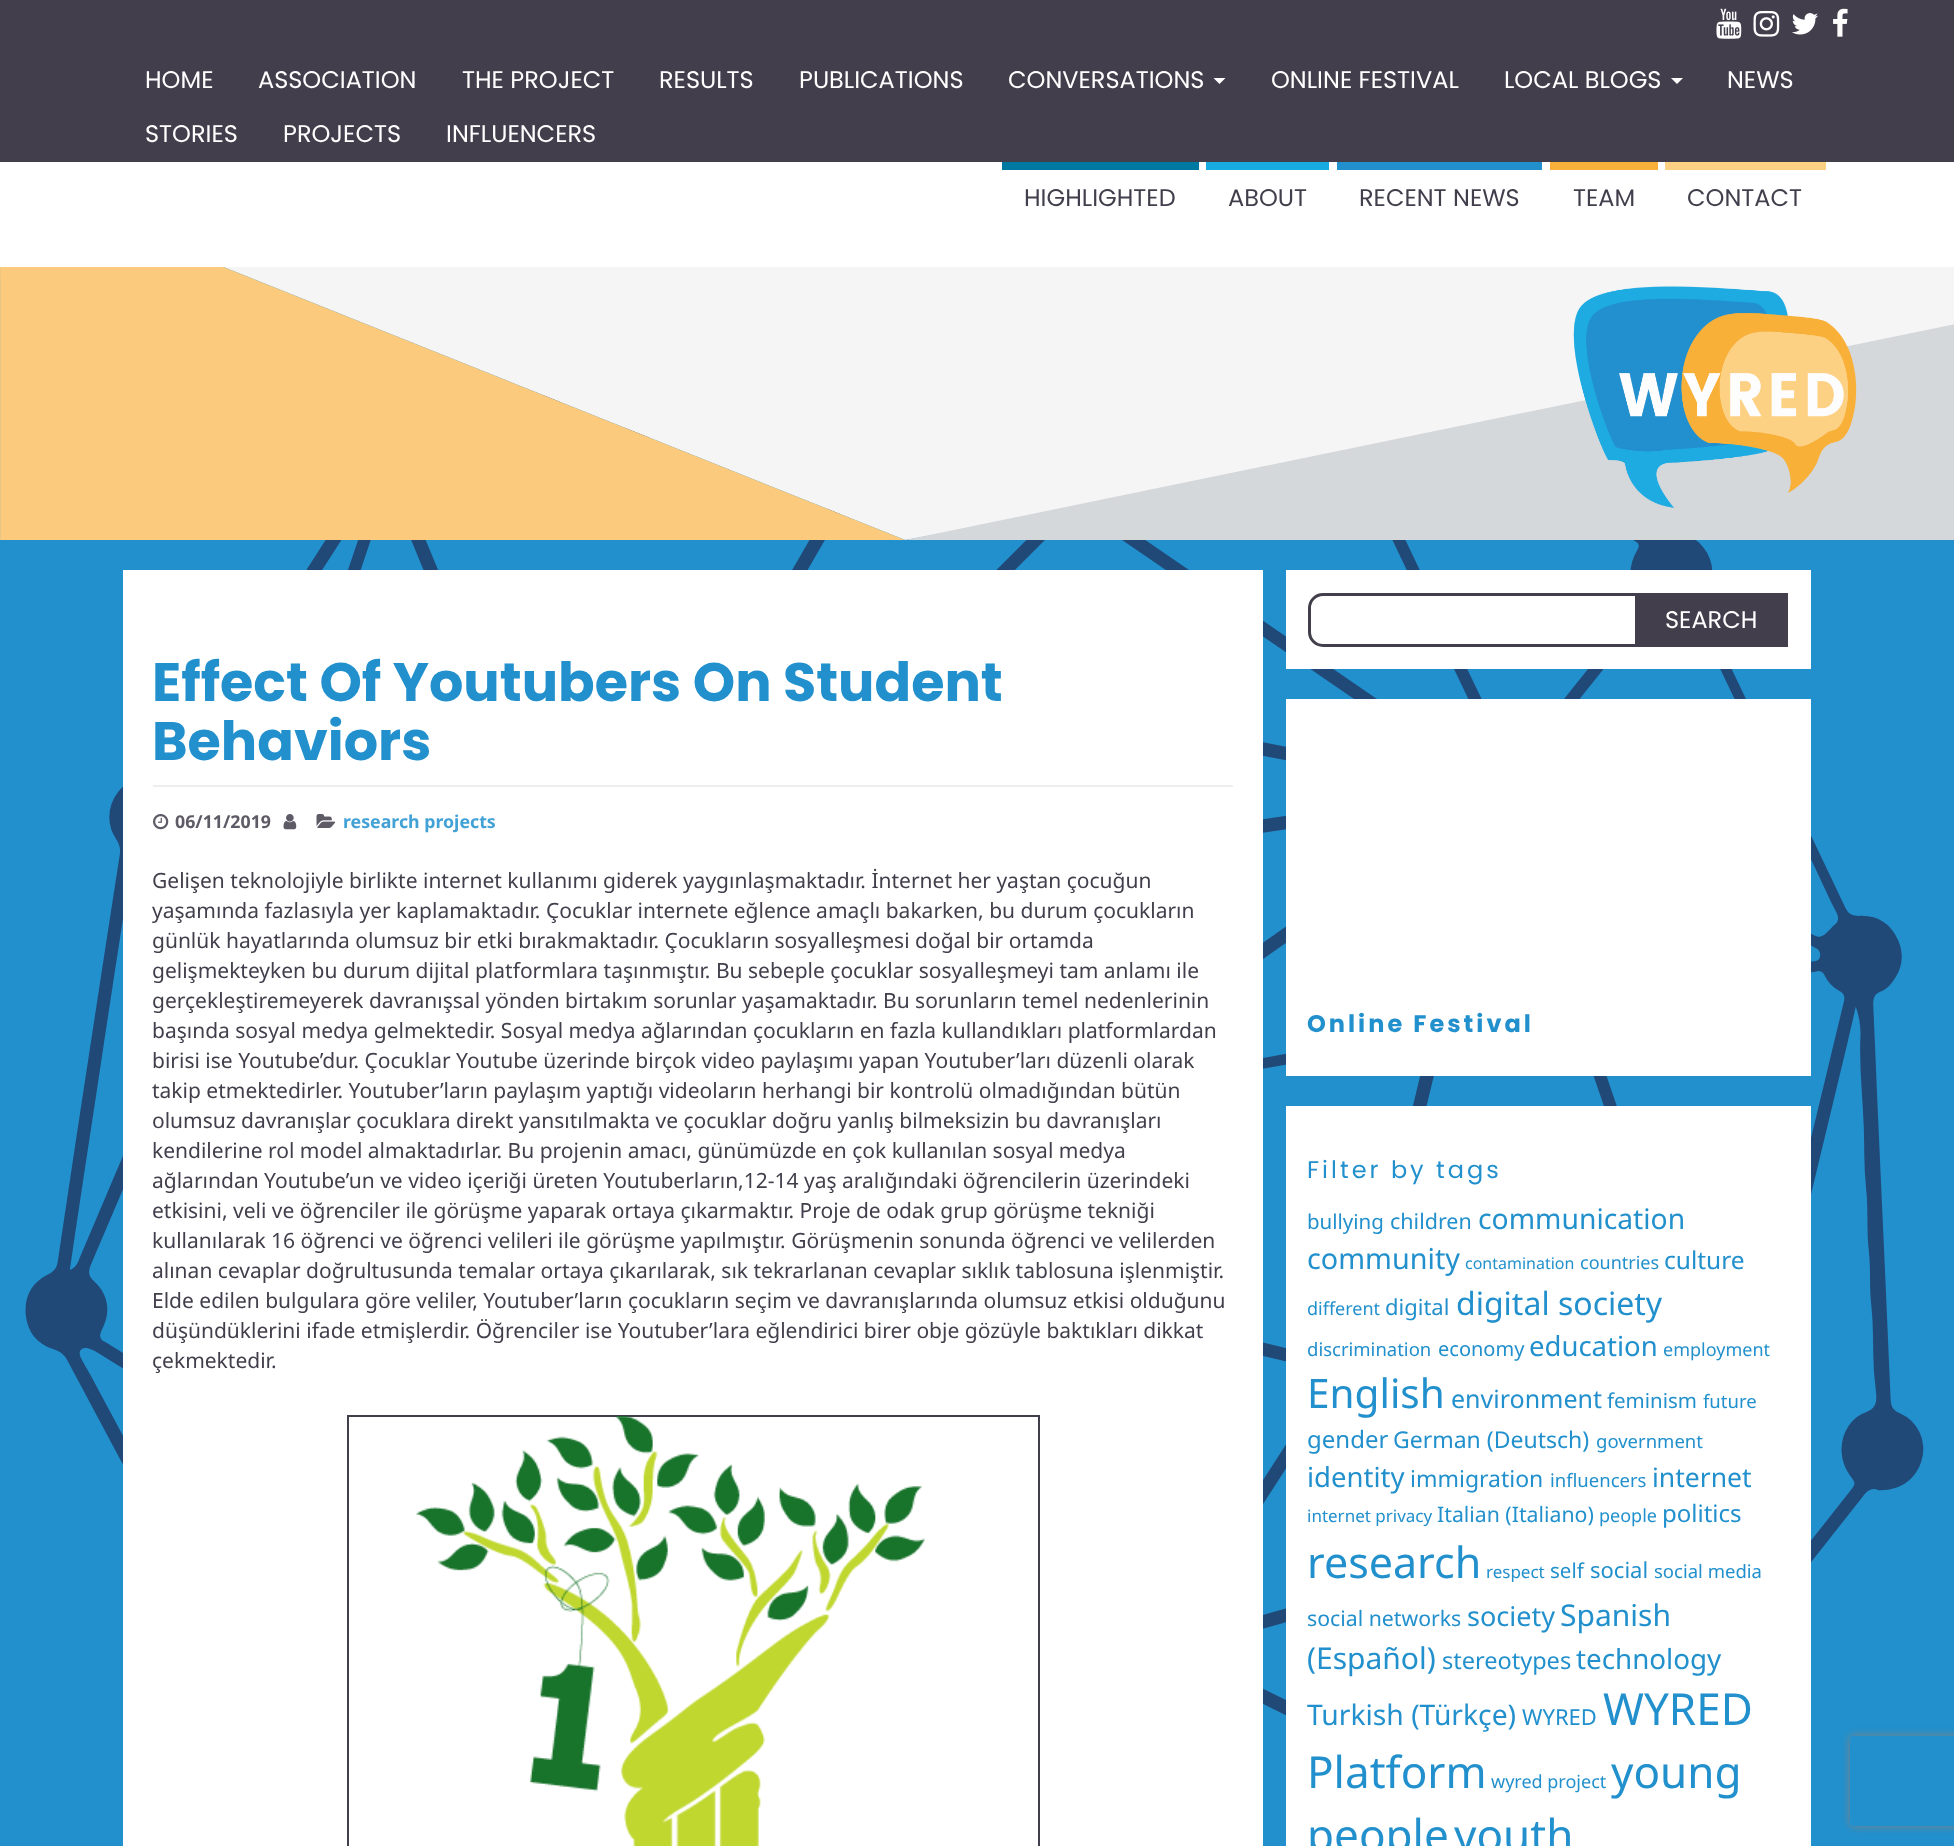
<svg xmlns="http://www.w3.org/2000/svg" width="1954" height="1846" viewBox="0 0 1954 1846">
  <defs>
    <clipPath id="clip1"><path d="M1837 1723H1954V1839H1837ZM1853 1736H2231C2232.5 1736 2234 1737.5 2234 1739V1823C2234 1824.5 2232.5 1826 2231 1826H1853C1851.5 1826 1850 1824.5 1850 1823V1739C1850 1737.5 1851.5 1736 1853 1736Z" clip-rule="evenodd"/></clipPath>
  </defs>
  <rect width="100%" height="100%" fill="#2190cd"/>
  <path d="M0 0h1954v162H0z" fill="#423e4b"/>
  <image x="1716" y="8" width="26" height="31" href="img/1.png"/>
  <image x="1753" y="10" width="27" height="27" href="img/2.png"/>
  <image x="1792" y="13" width="26" height="22" href="img/3.png"/>
  <image x="1833" y="8" width="15" height="29" href="img/4.png"/>
  <path d="M1213.5 78H1225.5L1219.5 84Z" fill="#fff"/>
  <path d="M1671 78H1683L1677 84Z" fill="#fff"/>
  <path d="M0 162h1954v105H0z" fill="#fff"/>
  <path d="M1002 162h197v8H1002z" fill="#0079a2"/>
  <path d="M1206 162h123v8H1206z" fill="#17abe2"/>
  <path d="M1337 162h205v8H1337z" fill="#2190cd"/>
  <path d="M1550 162h108v8H1550z" fill="#f8b03a"/>
  <path d="M1665 162h161v8H1665z" fill="#fdd183"/>
  <image x="25" y="395" width="1899" height="1321" href="img/5.png"/>
  <image x="0" y="267" width="1954" height="273" href="img/6.png"/>
  <path d="M123 570h1140v1276H123z" fill="#fff"/>
  <path d="M153 785h1080v2H153z" fill="#eee"/>
  <image x="153" y="814" width="16" height="16" href="img/7.png"/>
  <image x="283" y="814" width="14" height="16" href="img/8.png"/>
  <image x="316" y="814" width="20" height="14" href="img/9.png"/>
  <path d="M348 1416h691v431H348z" fill="none" stroke="#423e4b" stroke-width="2"/>
  <image x="415" y="1416" width="510" height="430" href="img/10.png"/>
  <path d="M1286 570h525v99H1286z" fill="#fff"/>
  <rect x="1309.5" y="594.5" width="477" height="51" rx="13.5" fill="none" stroke="#423e4b" stroke-width="3"/>
  <path d="M1635 593h153v54H1635z" fill="#423e4b"/>
  <path d="M1286 699h525v377H1286z" fill="#fff"/>
  <path d="M1286 1106h525v740H1286z" fill="#fff"/>
  <g clip-path="url(#clip1)">
    <rect x="1850" y="1736" width="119" height="90" rx="3" fill="#808080" filter="blur(4px)"/>
  </g>
  <g font-family="Poppins" font-size="24" fill="#fff">
    <text x="145" y="88">HOME</text>
    <text x="258" y="88">ASSOCIATION</text>
    <text x="462" y="88">THE PROJECT</text>
    <text x="659" y="88">RESULTS</text>
    <text x="799" y="88">PUBLICATIONS</text>
    <text x="1008" y="88">CONVERSATIONS</text>
    <text x="1271" y="88">ONLINE FESTIVAL</text>
    <text x="1504" y="88">LOCAL BLOGS</text>
    <text x="1727" y="88">NEWS</text>
    <text x="145" y="142">STORIES</text>
    <text x="283" y="142">PROJECTS</text>
    <text x="446" y="142">INFLUENCERS</text>
  </g>
  <g font-family="Poppins" font-size="24" fill="#423e4b">
    <text x="1024" y="206">HIGHLIGHTED</text>
    <text x="1228" y="206">ABOUT</text>
    <text x="1359" y="206">RECENT NEWS</text>
    <text x="1573" y="206">TEAM</text>
    <text x="1687" y="206">CONTACT</text>
  </g>
  <g font-family="Poppins" font-size="54" font-weight="bold" fill="#2190cd">
    <text x="152" y="701">Effect Of Youtubers On Student</text>
    <text x="152" y="760">Behaviors</text>
  </g>
  <text x="175" y="828" font-family="Noto Sans" font-size="17.75" font-weight="bold" fill="#5e5b66">06/11/2019</text>
  <text x="343" y="828" font-family="Noto Sans" font-size="17.75" font-weight="bold" fill="#42a1d5">research projects</text>
  <g font-family="Noto Sans" font-size="21" fill="#423e4b">
    <text x="152" y="888">Gelişen teknolojiyle birlikte internet kullanımı giderek yaygınlaşmaktadır. İnternet her yaştan çocuğun</text>
    <text x="152" y="918">yaşamında fazlasıyla yer kaplamaktadır. Çocuklar internete eğlence amaçlı bakarken, bu durum çocukların</text>
    <text x="152" y="948">günlük hayatlarında olumsuz bir etki bırakmaktadır. Çocukların sosyalleşmesi doğal bir ortamda</text>
    <text x="152" y="978">gelişmekteyken bu durum dijital platformlara taşınmıştır. Bu sebeple çocuklar sosyalleşmeyi tam anlamı ile</text>
    <text x="152" y="1008">gerçekleştiremeyerek davranışsal yönden birtakım sorunlar yaşamaktadır. Bu sorunların temel nedenlerinin</text>
    <text x="152" y="1038">başında sosyal medya gelmektedir. Sosyal medya ağlarından çocukların en fazla kullandıkları platformlardan</text>
    <text x="152" y="1068">birisi ise Youtube’dur. Çocuklar Youtube üzerinde birçok video paylaşımı yapan Youtuber’ları düzenli olarak</text>
    <text x="152" y="1098">takip etmektedirler. Youtuber’ların paylaşım yaptığı videoların herhangi bir kontrolü olmadığından bütün</text>
    <text x="152" y="1128">olumsuz davranışlar çocuklara direkt yansıtılmakta ve çocuklar doğru yanlış bilmeksizin bu davranışları</text>
    <text x="152" y="1158">kendilerine rol model almaktadırlar. Bu projenin amacı, günümüzde en çok kullanılan sosyal medya</text>
    <text x="152" y="1188">ağlarından Youtube’un ve video içeriği üreten Youtuberların,12-14 yaş aralığındaki öğrencilerin üzerindeki</text>
    <text x="152" y="1218">etkisini, veli ve öğrenciler ile görüşme yaparak ortaya çıkarmaktır. Proje de odak grup görüşme tekniği</text>
    <text x="152" y="1248">kullanılarak 16 öğrenci ve öğrenci velileri ile görüşme yapılmıştır. Görüşmenin sonunda öğrenci ve velilerden</text>
    <text x="152" y="1278">alınan cevaplar doğrultusunda temalar ortaya çıkarılarak, sık tekrarlanan cevaplar sıklık tablosuna işlenmiştir.</text>
    <text x="152" y="1308">Elde edilen bulgulara göre veliler, Youtuber’ların çocukların seçim ve davranışlarında olumsuz etkisi olduğunu</text>
    <text x="152" y="1338">düşündüklerini ifade etmişlerdir. Öğrenciler ise Youtuber’lara eğlendirici birer obje gözüyle baktıkları dikkat</text>
    <text x="152" y="1368">çekmektedir.</text>
  </g>
  <text x="1665" y="628" font-family="Poppins" font-size="24" fill="#fff">SEARCH</text>
  <text x="1307" y="1032" font-family="Poppins" font-size="24" font-weight="bold" letter-spacing="3" fill="#2190cd">Online Festival</text>
  <text x="1307" y="1178" font-family="Poppins" font-size="24" letter-spacing="3" fill="#2190cd">Filter by tags</text>
  <text x="1307" y="1229" font-family="Noto Sans" font-size="20.5" fill="#2190cd">bullying</text>
  <text x="1390" y="1229" font-family="Noto Sans" font-size="21.5" fill="#2190cd">children</text>
  <text x="1478" y="1229" font-family="Noto Sans" font-size="28.25" fill="#2190cd">communication</text>
  <text x="1307" y="1269" font-family="Noto Sans" font-size="28.75" fill="#2190cd">community</text>
  <text x="1465" y="1269" font-family="Noto Sans" font-size="16" fill="#2190cd">contamination</text>
  <text x="1580" y="1269" font-family="Noto Sans" font-size="18" fill="#2190cd">countries</text>
  <text x="1664" y="1269" font-family="Noto Sans" font-size="24.5" fill="#2190cd">culture</text>
  <text x="1307" y="1315" font-family="Noto Sans" font-size="18" fill="#2190cd">different</text>
  <text x="1385" y="1315" font-family="Noto Sans" font-size="22" fill="#2190cd">digital</text>
  <text x="1456" y="1315" font-family="Noto Sans" font-size="32" fill="#2190cd">digital society</text>
  <text x="1307" y="1356" font-family="Noto Sans" font-size="18.5" fill="#2190cd">discrimination</text>
  <text x="1438" y="1356" font-family="Noto Sans" font-size="20" fill="#2190cd">economy</text>
  <text x="1529" y="1356" font-family="Noto Sans" font-size="27.5" fill="#2190cd">education</text>
  <text x="1663" y="1356" font-family="Noto Sans" font-size="18" fill="#2190cd">employment</text>
  <text x="1307" y="1408" font-family="Noto Sans" font-size="40.5" fill="#2190cd">English</text>
  <text x="1451" y="1408" font-family="Noto Sans" font-size="25" fill="#2190cd">environment</text>
  <text x="1607" y="1408" font-family="Noto Sans" font-size="20.5" fill="#2190cd">feminism</text>
  <text x="1703" y="1408" font-family="Noto Sans" font-size="18.5" fill="#2190cd">future</text>
  <text x="1307" y="1448" font-family="Noto Sans" font-size="24" fill="#2190cd">gender</text>
  <text x="1393" y="1448" font-family="Noto Sans" font-size="23" fill="#2190cd">German (Deutsch)</text>
  <text x="1596" y="1448" font-family="Noto Sans" font-size="18.5" fill="#2190cd">government</text>
  <text x="1307" y="1487" font-family="Noto Sans" font-size="27.5" fill="#2190cd">identity</text>
  <text x="1410" y="1487" font-family="Noto Sans" font-size="23" fill="#2190cd">immigration</text>
  <text x="1550" y="1487" font-family="Noto Sans" font-size="18.5" fill="#2190cd">influencers</text>
  <text x="1652" y="1487" font-family="Noto Sans" font-size="26.5" fill="#2190cd">internet</text>
  <text x="1307" y="1522" font-family="Noto Sans" font-size="17" fill="#2190cd">internet privacy</text>
  <text x="1437" y="1522" font-family="Noto Sans" font-size="21.25" fill="#2190cd">Italian (Italiano)</text>
  <text x="1599" y="1522" font-family="Noto Sans" font-size="18" fill="#2190cd">people</text>
  <text x="1662" y="1522" font-family="Noto Sans" font-size="24" fill="#2190cd">politics</text>
  <text x="1307" y="1578" font-family="Noto Sans" font-size="43" fill="#2190cd">research</text>
  <text x="1486" y="1578" font-family="Noto Sans" font-size="17" fill="#2190cd">respect</text>
  <text x="1550" y="1578" font-family="Noto Sans" font-size="20.5" fill="#2190cd">self</text>
  <text x="1590" y="1578" font-family="Noto Sans" font-size="22" fill="#2190cd">social</text>
  <text x="1654" y="1578" font-family="Noto Sans" font-size="18.5" fill="#2190cd">social media</text>
  <text x="1307" y="1626" font-family="Noto Sans" font-size="21.25" fill="#2190cd">social networks</text>
  <text x="1467" y="1626" font-family="Noto Sans" font-size="27" fill="#2190cd">society</text>
  <g font-family="Noto Sans" font-size="30" fill="#2190cd">
    <text x="1560" y="1626">Spanish</text>
    <text x="1307" y="1669">(Español)</text>
  </g>
  <text x="1442" y="1669" font-family="Noto Sans" font-size="23.5" fill="#2190cd">stereotypes</text>
  <text x="1576" y="1669" font-family="Noto Sans" font-size="27.75" fill="#2190cd">technology</text>
  <text x="1307" y="1725" font-family="Noto Sans" font-size="28.25" fill="#2190cd">Turkish (Türkçe)</text>
  <text x="1522" y="1725" font-family="Noto Sans" font-size="22" fill="#2190cd">WYRED</text>
  <g font-family="Noto Sans" font-size="44" fill="#2190cd">
    <text x="1603" y="1725">WYRED</text>
    <text x="1307" y="1788">Platform</text>
  </g>
  <text x="1491" y="1788" font-family="Noto Sans" font-size="18" fill="#2190cd">wyred project</text>
  <g font-family="Noto Sans" font-size="44" fill="#2190cd">
    <text x="1611" y="1788">young</text>
    <text x="1307" y="1851">people</text>
    <text x="1454" y="1851">youth</text>
  </g>
</svg>
